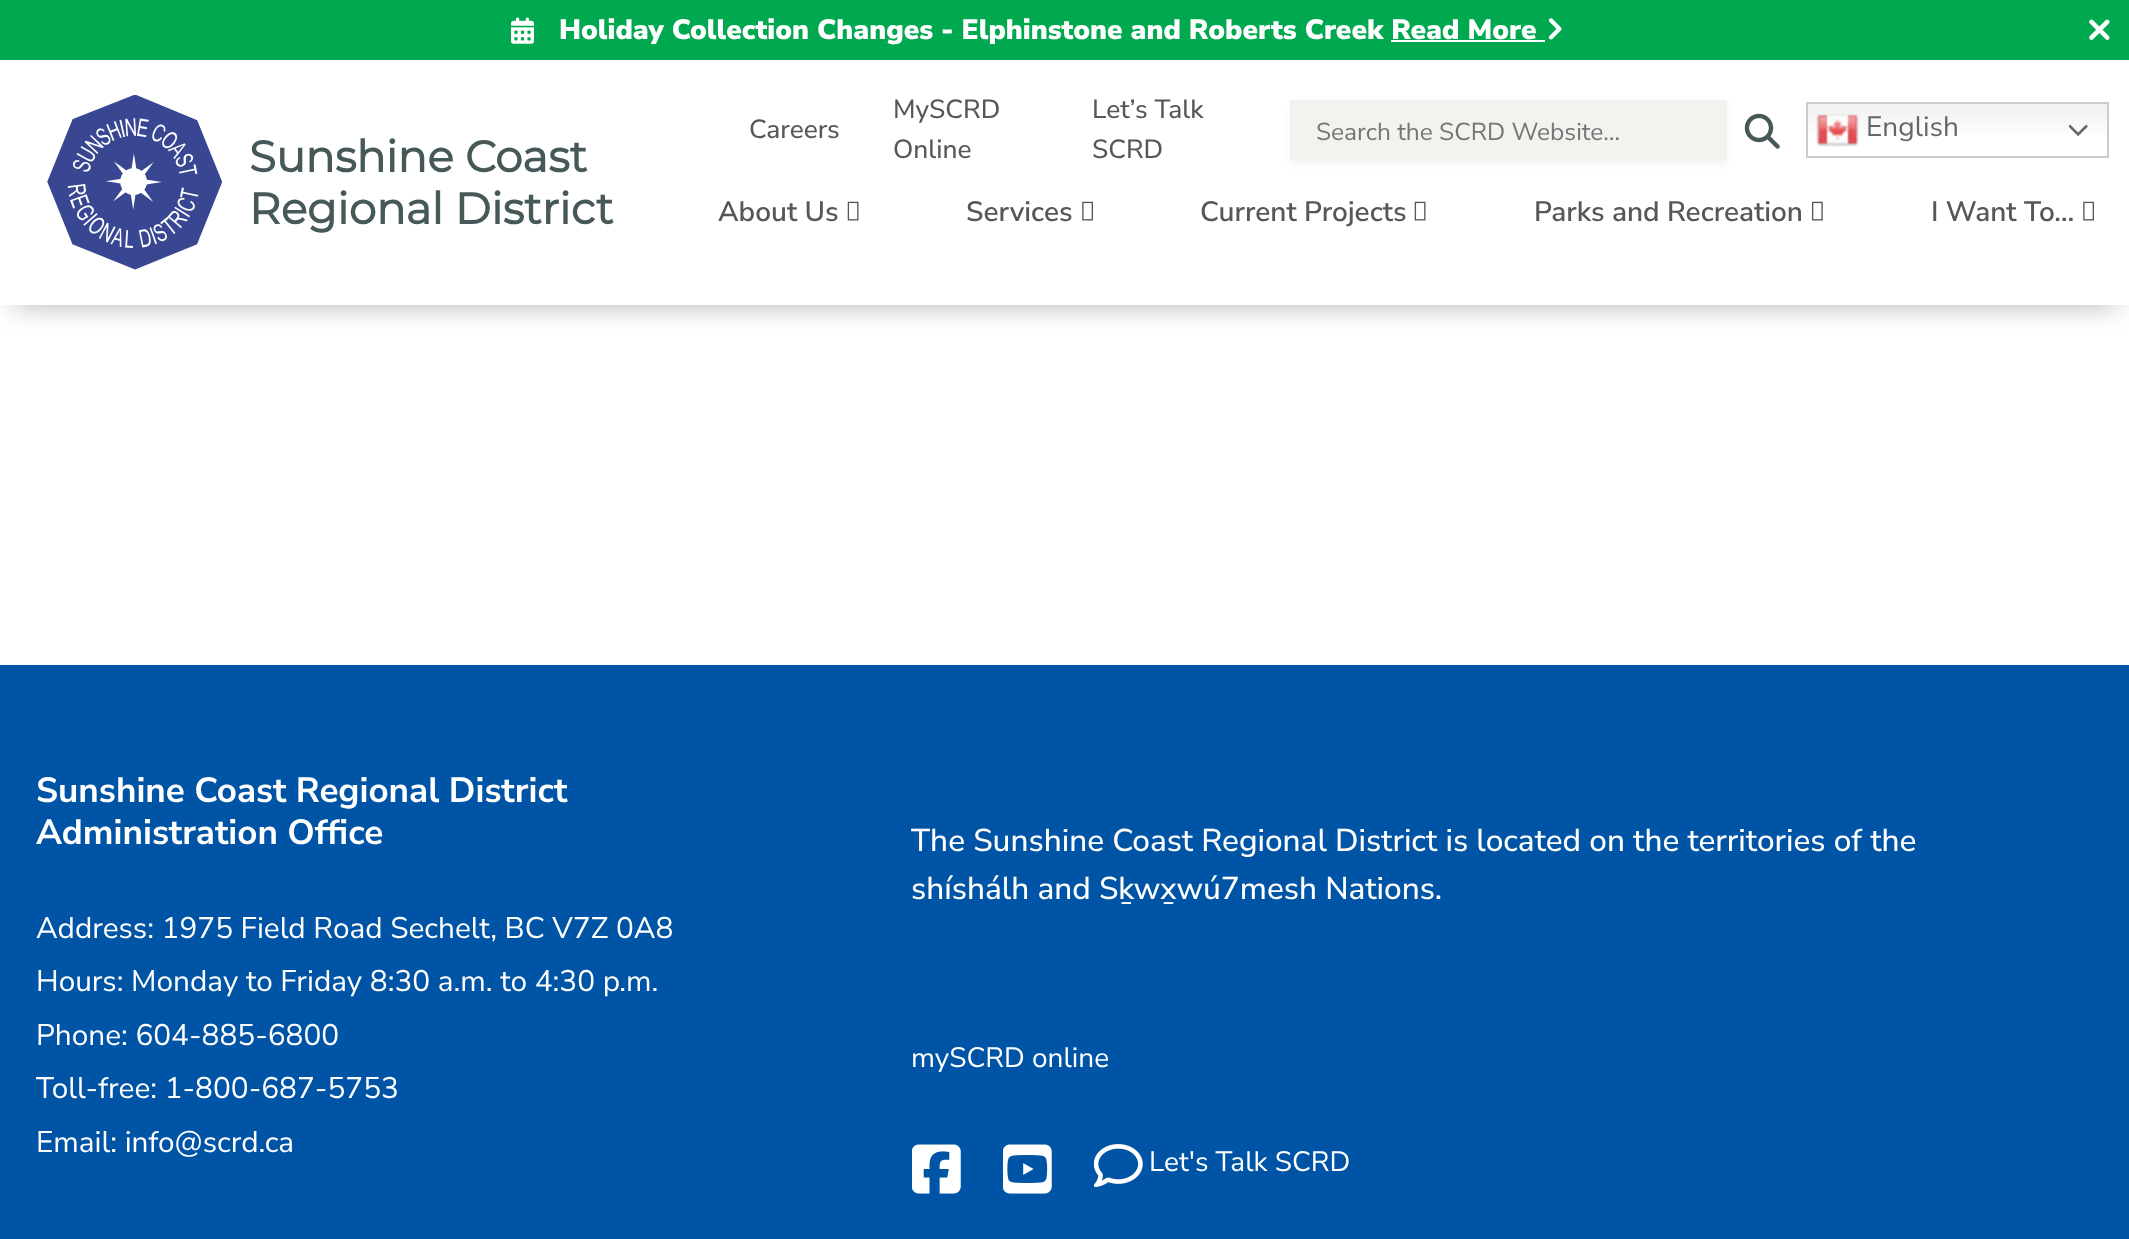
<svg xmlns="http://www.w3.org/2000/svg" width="2129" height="1239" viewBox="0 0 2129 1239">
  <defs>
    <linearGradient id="g1" gradientUnits="userSpaceOnUse" x1="1957" y1="101" x2="1957" y2="158"><stop offset="0" stop-color="#efefef"/><stop offset="0.7" stop-color="#fff"/></linearGradient>
  </defs>
  <rect width="100%" height="100%" fill="#fff"/>
  <path d="M14 28h2102v277H14z" fill="#0000004d" filter="blur(14px)"/>
  <path d="M0 60h2129v245H0z" fill="#fff"/>
  <path d="M0 0h2129v60H0z" fill="#00a94f"/>
  <image x="511" y="17" width="23" height="27" href="img/1.png"/>
  <image x="1548" y="18" width="14" height="22" href="img/2.png"/>
  <path d="M1391 40h154v2H1391z" fill="#fff"/>
  <image x="2089" y="19" width="21" height="21" href="img/3.png"/>
  <image x="47" y="95" width="175" height="175" href="img/4.png"/>
  <path d="M1290 103h437v62H1290z" fill="#0000000a" filter="blur(3.5px)"/>
  <path d="M1290 100h437v61H1290z" fill="#f2f2ef"/>
  <image x="1744" y="113" width="36" height="36" href="img/5.png"/>
  <path d="M1808 104h299v31H1808z" fill="url(#g1)"/>
  <path d="M1807 103h301v54H1807z" fill="none" stroke="#ccc" stroke-width="2"/>
  <image x="1816" y="114" width="43" height="33" href="img/6.png"/>
  <image x="2069" y="124" width="19" height="12" href="img/7.png"/>
  <image x="847" y="201" width="12" height="20" href="img/8.png"/>
  <image x="1082" y="201" width="11" height="20" href="img/9.png"/>
  <image x="1414" y="201" width="12" height="20" href="img/8.png"/>
  <image x="1811" y="201" width="12" height="20" href="img/10.png"/>
  <image x="2083" y="201" width="11" height="20" href="img/9.png"/>
  <path d="M0 665h2129v574H0z" fill="#0054a5"/>
  <image x="912" y="1144" width="49" height="50" href="img/11.png"/>
  <image x="1003" y="1144" width="49" height="50" href="img/12.png"/>
  <image x="1094" y="1144" width="49" height="43" href="img/13.png"/>
  <text x="559" y="39" font-family="Nunito Sans" font-size="28" font-weight="900" fill="#fff">Holiday Collection Changes - Elphinstone and Roberts Creek Read More</text>
  <g font-family="Montserrat" font-size="43.75" font-weight="bold" fill="#475859">
    <text x="249" y="172">Sunshine Coast</text>
    <text x="249" y="224">Regional District</text>
  </g>
  <g font-family="Nunito Sans" font-size="26.25" font-weight="500" fill="#575757">
    <text x="749" y="138">Careers</text>
    <text x="893" y="118">MySCRD</text>
    <text x="893" y="158">Online</text>
    <text x="1092" y="118">Let’s Talk</text>
    <text x="1092" y="158">SCRD</text>
  </g>
  <text x="1316" y="140" font-family="Nunito Sans" font-size="24.5" fill="#757575">Search the SCRD Website…</text>
  <text x="1866" y="136" font-family="Nunito Sans" font-size="28" fill="#666">English</text>
  <g font-family="Nunito Sans" font-size="28" font-weight="600" fill="#575757">
    <text x="718" y="221">About Us</text>
    <text x="966" y="221">Services</text>
    <text x="1200" y="221">Current Projects</text>
    <text x="1534" y="221">Parks and Recreation</text>
    <text x="1931" y="221">I Want To…</text>
  </g>
  <g font-family="Nunito Sans" font-size="35" font-weight="bold" fill="#fff">
    <text x="36" y="802">Sunshine Coast Regional District</text>
    <text x="36" y="844">Administration Office</text>
  </g>
  <g font-family="Nunito Sans" font-size="29.75" fill="#fff">
    <text x="36" y="938">Address: 1975 Field Road Sechelt, BC V7Z 0A8</text>
    <text x="36" y="991">Hours: Monday to Friday 8:30 a.m. to 4:30 p.m.</text>
    <text x="36" y="1045">Phone: 604-885-6800</text>
    <text x="36" y="1098">Toll-free: 1-800-687-5753</text>
    <text x="36" y="1152">Email: info@scrd.ca</text>
  </g>
  <g font-family="Nunito Sans" font-size="31.5" font-weight="500" fill="#fff">
    <text x="911" y="851">The Sunshine Coast Regional District is located on the territories of the</text>
    <text x="911" y="899">shíshálh and Sḵwx̱wú7mesh Nations.</text>
  </g>
  <g font-family="Nunito Sans" font-size="28" fill="#fff">
    <text x="911" y="1067">mySCRD online</text>
    <text x="1149" y="1171">Let's Talk SCRD</text>
  </g>
</svg>
